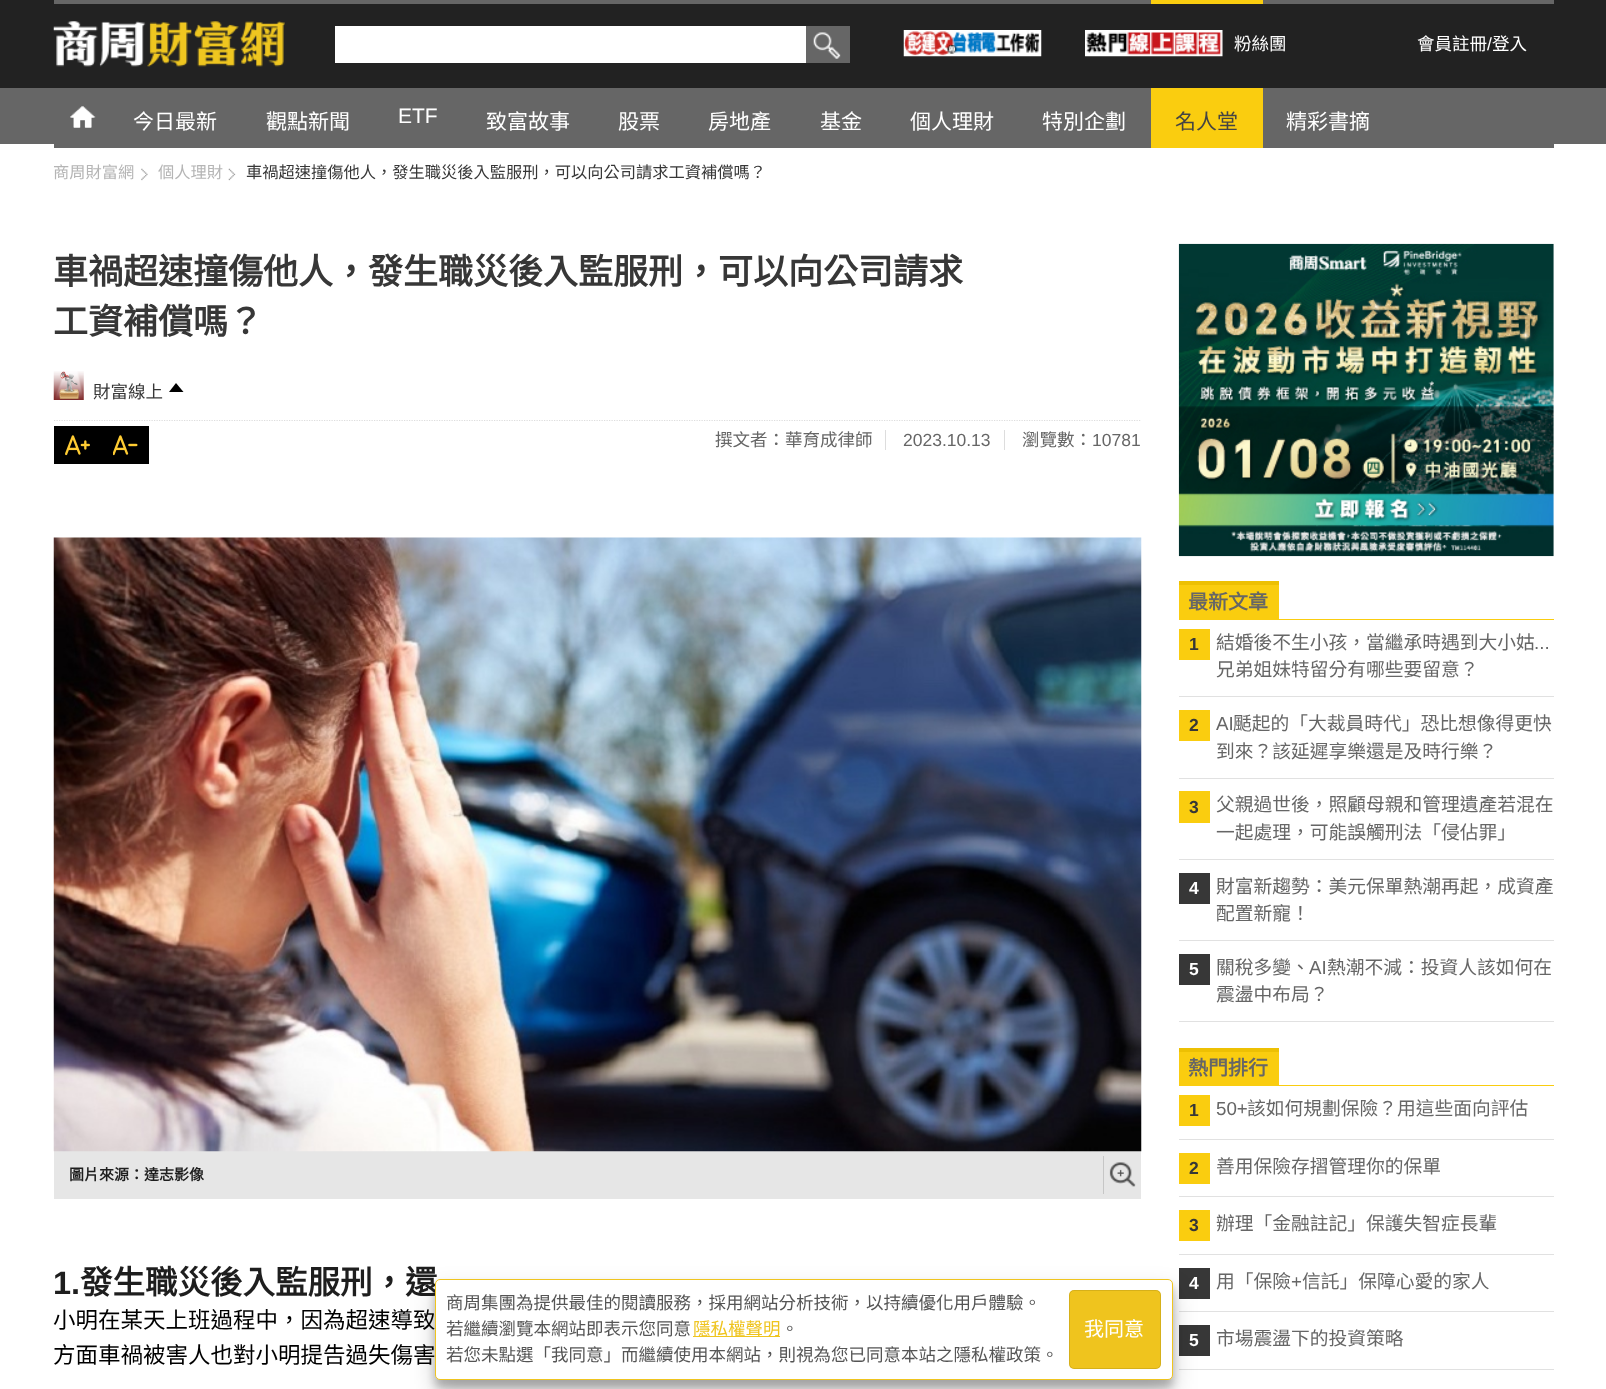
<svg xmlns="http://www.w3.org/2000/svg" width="1606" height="1389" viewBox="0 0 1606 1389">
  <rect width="100%" height="100%" fill="#fff"/>
  <path d="M0 0h1606v88H0z" fill="#222"/>
  <path d="M54 0h1500v4H54z" fill="#666"/>
  <path d="M1151 0h112v4H1151z" fill="#facd0f"/>
  <image x="53" y="21" width="232" height="46" href="img/1.png"/>
  <path d="M335 26h471v37H335z" fill="#fff"/>
  <path d="M806 26h44v37H806z" fill="#666"/>
  <image x="813" y="32" width="28" height="27" href="img/2.png"/>
  <image x="903" y="30" width="139" height="27" href="img/3.png"/>
  <image x="1085" y="30" width="138" height="27" href="img/4.png"/>
  <path d="M0 88h1606v56H0z" fill="#666"/>
  <path d="M54 144h1500v4H54z" fill="#666"/>
  <image x="70" y="106" width="26" height="22" href="img/5.png"/>
  <image x="70" y="106" width="26" height="22" href="img/6.png"/>
  <path d="M1151 88h112v60H1151z" fill="#facd0f"/>
  <image x="141" y="168" width="7" height="13" href="img/7.png"/>
  <image x="228" y="168" width="8" height="13" href="img/8.png"/>
  <image x="53" y="371" width="31" height="29" href="img/9.png"/>
  <path d="M176 383L183.5 392H169Z" fill="#000"/>
  <path d="M54 420.5H1141" fill="none" stroke="#ddd" stroke-width="1.2" stroke-dasharray="1.25 1.25"/>
  <path d="M54 426h95v38H54z" fill="#000"/>
  <image x="65" y="435" width="25" height="21" href="img/10.png"/>
  <image x="113" y="435" width="25" height="21" href="img/11.png"/>
  <path d="M885 430h1v20H885z" fill="#ddd"/>
  <path d="M1004 430h1v20H1004z" fill="#ddd"/>
  <path d="M54 1151h1087v48H54z" fill="#e6e6e6"/>
  <image x="53" y="537" width="1089" height="615" href="img/12.png"/>
  <image x="1109" y="1162" width="27" height="25" href="img/13.png"/>
  <path d="M1103 1156h1v38H1103z" fill="#c6c6c6"/>
  <image x="1178" y="243" width="376" height="314" href="img/14.png"/>
  <path d="M1179 619h375v1H1179z" fill="#facd0f"/>
  <path d="M1179 585h100v34H1179z" fill="#facd0f"/>
  <path d="M1179 581h100v4H1179z" fill="#edc003"/>
  <path d="M1179 696h375v1H1179z" fill="#e1e1e1"/>
  <path d="M1179 629h31v31H1179z" fill="#facd0f"/>
  <path d="M1179 778h375v1H1179z" fill="#e1e1e1"/>
  <path d="M1179 710h31v31H1179z" fill="#facd0f"/>
  <path d="M1179 859h375v1H1179z" fill="#e1e1e1"/>
  <path d="M1179 791h31v32H1179z" fill="#facd0f"/>
  <path d="M1179 940h375v1H1179z" fill="#e1e1e1"/>
  <path d="M1179 873h31v31H1179z" fill="#373737"/>
  <path d="M1179 1021h375v1H1179z" fill="#e1e1e1"/>
  <path d="M1179 954h31v31H1179z" fill="#373737"/>
  <path d="M1179 1085h375v1H1179z" fill="#facd0f"/>
  <path d="M1179 1052h100v33H1179z" fill="#facd0f"/>
  <path d="M1179 1048h100v4H1179z" fill="#edc003"/>
  <path d="M1179 1139h375v1H1179z" fill="#e1e1e1"/>
  <path d="M1179 1095h31v31H1179z" fill="#facd0f"/>
  <path d="M1179 1196h375v1H1179z" fill="#e1e1e1"/>
  <path d="M1179 1153h31v31H1179z" fill="#facd0f"/>
  <path d="M1179 1254h375v1H1179z" fill="#e1e1e1"/>
  <path d="M1179 1210h31v31H1179z" fill="#facd0f"/>
  <path d="M1179 1311h375v1H1179z" fill="#e1e1e1"/>
  <path d="M1179 1268h31v31H1179z" fill="#373737"/>
  <path d="M1179 1369h375v1H1179z" fill="#e1e1e1"/>
  <path d="M1179 1325h31v31H1179z" fill="#373737"/>
  <rect x="435" y="1286" width="738" height="102" rx="5" fill="#0000003b" filter="blur(4px)"/>
  <rect x="435" y="1291" width="738" height="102" rx="5" fill="#00000030" filter="blur(12.5px)"/>
  <g font-family="Noto Sans CJK TC" font-size="17.5" fill="#fff">
    <text x="1234" y="50">粉絲團</text>
    <text x="1417" y="50">會員註冊</text>
  </g>
  <text x="1487" y="50" font-family="Liberation Sans" font-size="17.5" fill="#fff">/</text>
  <text x="1492" y="50" font-family="Noto Sans CJK TC" font-size="17.5" fill="#fff">登入</text>
  <g font-family="Noto Sans CJK TC" font-size="21" fill="#fff">
    <text x="133" y="129">今日最新</text>
    <text x="266" y="129">觀點新聞</text>
  </g>
  <text x="398" y="123" font-family="Liberation Sans" font-size="21" fill="#fff">ETF</text>
  <g font-family="Noto Sans CJK TC" font-size="21" fill="#fff">
    <text x="486" y="129">致富故事</text>
    <text x="618" y="129">股票</text>
    <text x="708" y="129">房地產</text>
    <text x="820" y="129">基金</text>
    <text x="910" y="129">個人理財</text>
    <text x="1042" y="129">特別企劃</text>
  </g>
  <text x="1175" y="129" font-family="Noto Sans CJK TC" font-size="21" fill="#444">名人堂</text>
  <text x="1286" y="129" font-family="Noto Sans CJK TC" font-size="21" fill="#fff">精彩書摘</text>
  <g font-family="Noto Sans CJK TC" font-size="16.25" fill="#b5b5b5">
    <text x="53" y="178">商周財富網</text>
    <text x="158" y="178">個人理財</text>
  </g>
  <text x="246" y="178" font-family="Noto Sans CJK TC" font-size="16.25" fill="#373737">車禍超速撞傷他人，發生職災後入監服刑，可以向公司請求工資補償嗎？</text>
  <g font-family="Noto Sans CJK TC" font-size="35" font-weight="bold" fill="#373737">
    <text x="53" y="284">車禍超速撞傷他人，發生職災後入監服刑，可以向公司請求</text>
    <text x="53" y="334">工資補償嗎？</text>
  </g>
  <text x="93" y="398" font-family="Noto Sans CJK TC" font-size="17.5" fill="#373737">財富線上</text>
  <text x="715" y="446" font-family="Noto Sans CJK TC" font-size="17.5" fill="#666">撰文者：華育成律師</text>
  <text x="903" y="446" font-family="Liberation Sans" font-size="17.5" fill="#666">2023.10.13</text>
  <text x="1022" y="446" font-family="Noto Sans CJK TC" font-size="17.5" fill="#666">瀏覽數：</text>
  <text x="1092" y="446" font-family="Liberation Sans" font-size="17.5" fill="#666">10781</text>
  <text x="69" y="1180" font-family="Noto Sans CJK TC" font-size="15" font-weight="bold" fill="#1e1e1e">圖片來源：達志影像</text>
  <text x="53" y="1294" font-family="Liberation Sans" font-size="32.5" font-weight="bold" fill="#1e1e1e">1.</text>
  <text x="80" y="1294" font-family="Noto Sans CJK TC" font-size="32.5" font-weight="bold" fill="#1e1e1e">發生職災後入監服刑，還</text>
  <g font-family="Noto Sans CJK TC" font-size="22.5" fill="#000">
    <text x="53" y="1328">小明在某天上班過程中，因為超速導致</text>
    <text x="53" y="1363">方面車禍被害人也對小明提告過失傷害</text>
  </g>
  <text x="1188" y="609" font-family="Noto Sans CJK TC" font-size="20" font-weight="bold" fill="#666">最新文章</text>
  <text x="1189" y="650" font-family="Liberation Sans" font-size="17.5" font-weight="bold" fill="#373737">1</text>
  <text x="1216" y="649" font-family="Noto Sans CJK TC" font-size="18.75" fill="#666">結婚後不生小孩，當繼承時遇到大小姑</text>
  <text x="1534" y="649" font-family="Liberation Sans" font-size="18.75" fill="#666">...</text>
  <text x="1216" y="676" font-family="Noto Sans CJK TC" font-size="18.75" fill="#666">兄弟姐妹特留分有哪些要留意？</text>
  <text x="1189" y="731" font-family="Liberation Sans" font-size="17.5" font-weight="bold" fill="#373737">2</text>
  <text x="1216" y="730" font-family="Liberation Sans" font-size="18.75" fill="#666">AI</text>
  <g font-family="Noto Sans CJK TC" font-size="18.75" fill="#666">
    <text x="1233" y="730">颳起的「大裁員時代」恐比想像得更快</text>
    <text x="1216" y="758">到來？該延遲享樂還是及時行樂？</text>
  </g>
  <text x="1189" y="813" font-family="Liberation Sans" font-size="17.5" font-weight="bold" fill="#373737">3</text>
  <g font-family="Noto Sans CJK TC" font-size="18.75" fill="#666">
    <text x="1216" y="811">父親過世後，照顧母親和管理遺產若混在</text>
    <text x="1216" y="839">一起處理，可能誤觸刑法「侵佔罪」</text>
  </g>
  <text x="1189" y="894" font-family="Liberation Sans" font-size="17.5" font-weight="bold" fill="#fff">4</text>
  <g font-family="Noto Sans CJK TC" font-size="18.75" fill="#666">
    <text x="1216" y="893">財富新趨勢：美元保單熱潮再起，成資產</text>
    <text x="1216" y="920">配置新寵！</text>
  </g>
  <text x="1189" y="975" font-family="Liberation Sans" font-size="17.5" font-weight="bold" fill="#fff">5</text>
  <text x="1216" y="974" font-family="Noto Sans CJK TC" font-size="18.75" fill="#666">關稅多變、</text>
  <text x="1309" y="974" font-family="Liberation Sans" font-size="18.75" fill="#666">AI</text>
  <g font-family="Noto Sans CJK TC" font-size="18.75" fill="#666">
    <text x="1327" y="974">熱潮不減：投資人該如何在</text>
    <text x="1216" y="1001">震盪中布局？</text>
  </g>
  <text x="1188" y="1075" font-family="Noto Sans CJK TC" font-size="20" font-weight="bold" fill="#666">熱門排行</text>
  <text x="1189" y="1116" font-family="Liberation Sans" font-size="17.5" font-weight="bold" fill="#373737">1</text>
  <text x="1216" y="1115" font-family="Liberation Sans" font-size="18.75" fill="#666">50+</text>
  <text x="1247" y="1115" font-family="Noto Sans CJK TC" font-size="18.75" fill="#666">該如何規劃保險？用這些面向評估</text>
  <text x="1189" y="1174" font-family="Liberation Sans" font-size="17.5" font-weight="bold" fill="#373737">2</text>
  <text x="1216" y="1173" font-family="Noto Sans CJK TC" font-size="18.75" fill="#666">善用保險存摺管理你的保單</text>
  <text x="1189" y="1231" font-family="Liberation Sans" font-size="17.5" font-weight="bold" fill="#373737">3</text>
  <text x="1216" y="1230" font-family="Noto Sans CJK TC" font-size="18.75" fill="#666">辦理「金融註記」保護失智症長輩</text>
  <text x="1189" y="1289" font-family="Liberation Sans" font-size="17.5" font-weight="bold" fill="#fff">4</text>
  <text x="1216" y="1288" font-family="Noto Sans CJK TC" font-size="18.75" fill="#666">用「保險</text>
  <text x="1291" y="1288" font-family="Liberation Sans" font-size="18.75" fill="#666">+</text>
  <text x="1302" y="1288" font-family="Noto Sans CJK TC" font-size="18.75" fill="#666">信託」保障心愛的家人</text>
  <text x="1189" y="1346" font-family="Liberation Sans" font-size="17.5" font-weight="bold" fill="#fff">5</text>
  <text x="1216" y="1345" font-family="Noto Sans CJK TC" font-size="18.75" fill="#666">市場震盪下的投資策略</text>
  <rect x="435.5" y="1279.5" width="737" height="100" rx="4.5" fill="#fff" stroke="#efc41e"/>
  <g font-family="Noto Sans CJK TC" font-size="17.5" fill="#555">
    <text x="446" y="1309">商周集團為提供最佳的閱讀服務，採用網站分析技術，以持續優化用戶體驗。</text>
    <text x="446" y="1335">若繼續瀏覽本網站即表示您同意</text>
  </g>
  <path d="M693 1336h87v1H693z" fill="#efc41e"/>
  <text x="693" y="1335" font-family="Noto Sans CJK TC" font-size="17.5" fill="#efc41e">隱私權聲明</text>
  <g font-family="Noto Sans CJK TC" font-size="17.5" fill="#555">
    <text x="781" y="1335">。</text>
    <text x="446" y="1361">若您未點選「我同意」而繼續使用本網站，則視為您已同意本站之隱私權政策。</text>
  </g>
  <rect x="1069" y="1290" width="92" height="79" rx="5" fill="#efc41e"/>
  <rect x="1069.5" y="1290.5" width="91" height="78" rx="4.5" fill="none" stroke="#0000001a"/>
  <text x="1084" y="1336" font-family="Noto Sans CJK TC" font-size="20" fill="#fff">我同意</text>
</svg>
